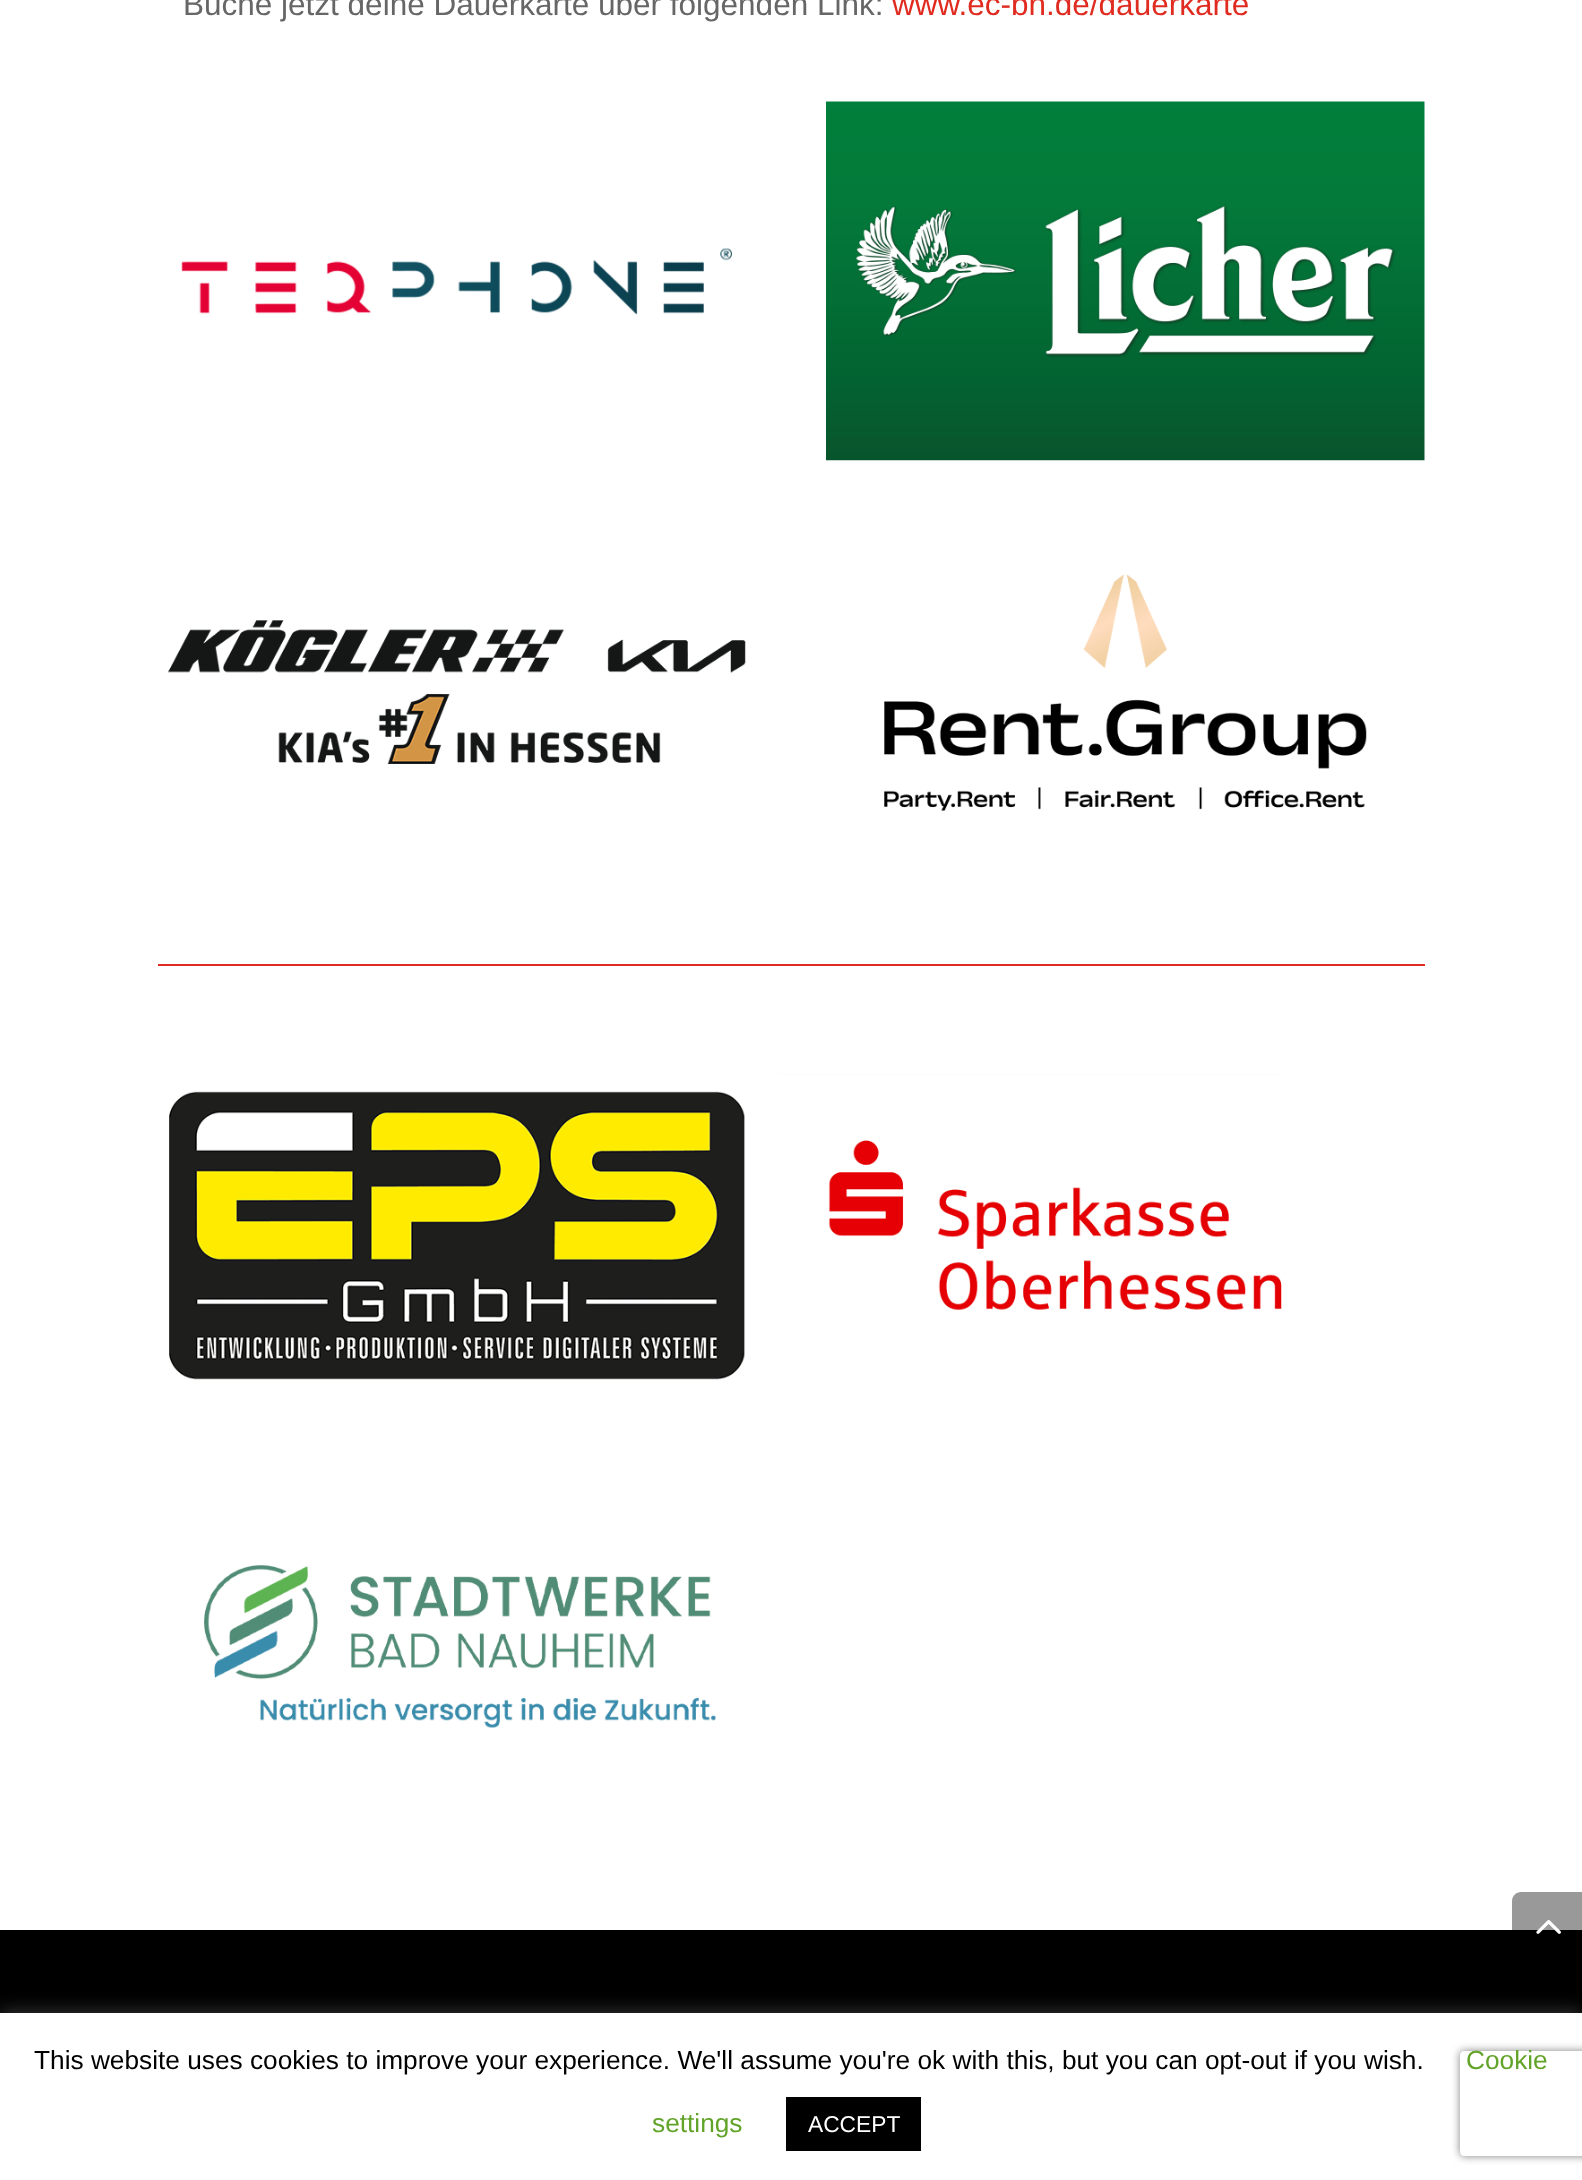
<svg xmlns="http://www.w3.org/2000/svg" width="1582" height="2180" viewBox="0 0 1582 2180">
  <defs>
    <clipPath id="clip1"><path d="M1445 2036H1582V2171H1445ZM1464 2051H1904C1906 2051 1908 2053 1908 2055V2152C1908 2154 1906 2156 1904 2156H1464C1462 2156 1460 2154 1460 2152V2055C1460 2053 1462 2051 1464 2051Z" clip-rule="evenodd"/></clipPath>
  </defs>
  <rect width="100%" height="100%" fill="#fff"/>
  <image x="181" y="248" width="551" height="67" href="img/1.png"/>
  <image x="826" y="101" width="599" height="360" href="img/2.png"/>
  <image x="168" y="620" width="578" height="144" href="img/3.png"/>
  <image x="884" y="574" width="483" height="237" href="img/4.png"/>
  <path d="M158 964h1267v2H158z" fill="#e02b20"/>
  <image x="169" y="1091" width="576" height="289" href="img/5.png"/>
  <image x="777" y="1072" width="505" height="239" href="img/6.png"/>
  <image x="204" y="1565" width="512" height="163" href="img/7.png"/>
  <path d="M0 1930h1582v83H0z" fill="#000"/>
  <path d="M1521 1892H1582V1962H1521C1516 1962 1512 1958 1512 1953V1901C1512 1896 1516 1892 1521 1892Z" fill="#00000066"/>
  <image x="1536" y="1920" width="25" height="14" href="img/8.png"/>
  <path d="M0 2011h1582v168H0z" fill="#acabab4d" filter="blur(9px)"/>
  <path d="M0 2013h1582v167H0z" fill="#fff"/>
  <g clip-path="url(#clip1)">
    <rect x="1460" y="2051" width="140" height="105" rx="4" fill="#808080" filter="blur(4.5px)"/>
  </g>
  <path d="M786 2097h135v54H786z" fill="#000"/>
  <text x="183" y="15" font-family="Liberation Sans" font-size="31.5" fill="#666">Buche jetzt deine Dauerkarte über folgenden Link:</text>
  <text x="892" y="15" font-family="Liberation Sans" font-size="31.5" fill="#e02b20">www.ec-bn.de/dauerkarte</text>
  <text x="34" y="2069" font-family="Liberation Sans" font-size="26.25" fill="#000">This website uses cookies to improve your experience. We'll assume you're ok with this, but you can opt-out if you wish.</text>
  <g font-family="Liberation Sans" font-size="26.25" fill="#62a329">
    <text x="1466" y="2069">Cookie</text>
    <text x="652" y="2132">settings</text>
  </g>
  <text x="808" y="2132" font-family="Liberation Sans" font-size="22.75" fill="#fff">ACCEPT</text>
</svg>
